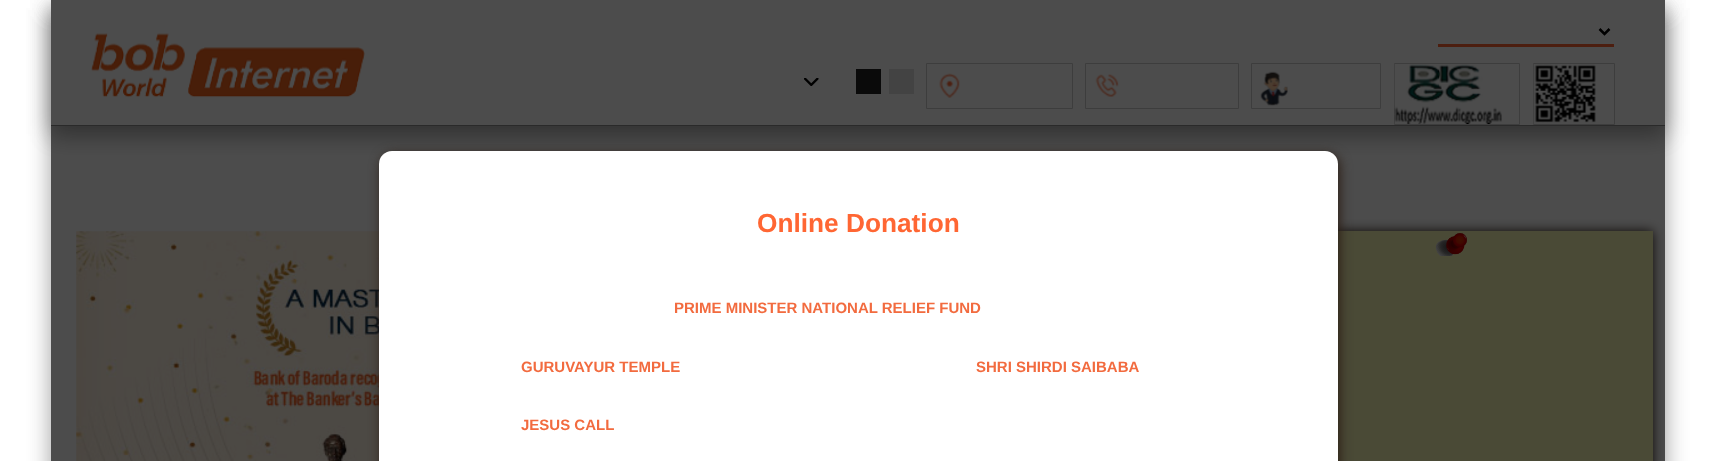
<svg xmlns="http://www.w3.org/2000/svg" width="1716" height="461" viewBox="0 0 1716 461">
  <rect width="100%" height="100%" fill="#fff"/>
  <path d="M51 8h1614v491H51z" fill="#00000030" filter="blur(12.5px)"/>
  <path d="M51 10h1614v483H51z" fill="#00000033" filter="blur(10.5px)"/>
  <path d="M51 126h1614v335H51z" fill="#fff"/>
  <path d="M51 8h1614v126H51z" fill="#00000030" filter="blur(12.5px)"/>
  <path d="M51 10h1614v126H51z" fill="#00000033" filter="blur(10.5px)"/>
  <path d="M51 0h1614v125H51z" fill="#fff"/>
  <path d="M51 125h1614v1H51z" fill="#8c8c8c"/>
  <image x="91" y="33" width="274" height="65" href="img/1.png"/>
  <path d="M1438 44h176v3H1438z" fill="#f63"/>
  <path d="M1599.5 29L1604.5 34L1609.5 29" fill="none" stroke="#000" stroke-width="2.5"/>
  <image x="804" y="78" width="15" height="8" href="img/2.png"/>
  <path d="M856 69h25v25H856z" fill="#222"/>
  <path d="M889 69h25v25H889z" fill="#e0e0e0"/>
  <path d="M926.5 63.5h146v45H926.5z" fill="none" stroke="#ccc"/>
  <image x="939" y="73" width="21" height="25" href="img/3.png"/>
  <path d="M1085.5 63.5h153v45H1085.5z" fill="none" stroke="#ccc"/>
  <image x="1095" y="74" width="24" height="23" href="img/4.png"/>
  <path d="M1251.5 63.5h129v45H1251.5z" fill="none" stroke="#ccc"/>
  <image x="1260" y="71" width="28" height="35" href="img/5.png"/>
  <path d="M1394.5 63.5h125v61H1394.5z" fill="none" stroke="#ccc"/>
  <image x="1394" y="64" width="108" height="60" href="img/6.png"/>
  <path d="M1533.5 63.5h81v61H1533.5z" fill="none" stroke="#ccc"/>
  <image x="1533" y="64" width="63" height="60" href="img/7.png"/>
  <image x="76" y="231" width="303" height="230" href="img/8.png"/>
  <path d="M1249 231h404v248H1249z" fill="#2d1f16" filter="blur(6px)"/>
  <path d="M1338 231h315v230H1338z" fill="#f8f7b6"/>
  <image x="1435" y="233" width="32" height="23" href="img/9.png"/>
  <path d="M51 0h1614v461H51z" fill="#000000b3"/>
  <rect x="381" y="154" width="959" height="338" rx="13" fill="#2d1f16" filter="blur(6px)"/>
  <rect x="379" y="151" width="959" height="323" rx="13" fill="#fff"/>
  <text x="757" y="232" font-family="Liberation Sans" font-size="26.25" font-weight="bold" fill="#f63">Online Donation</text>
  <g font-family="Liberation Sans" font-size="15" font-weight="bold" fill="#f26b3f">
    <text x="674" y="313">PRIME MINISTER NATIONAL RELIEF FUND</text>
    <text x="521" y="372">GURUVAYUR TEMPLE</text>
    <text x="976" y="372">SHRI SHIRDI SAIBABA</text>
    <text x="521" y="430">JESUS CALL</text>
  </g>
</svg>
